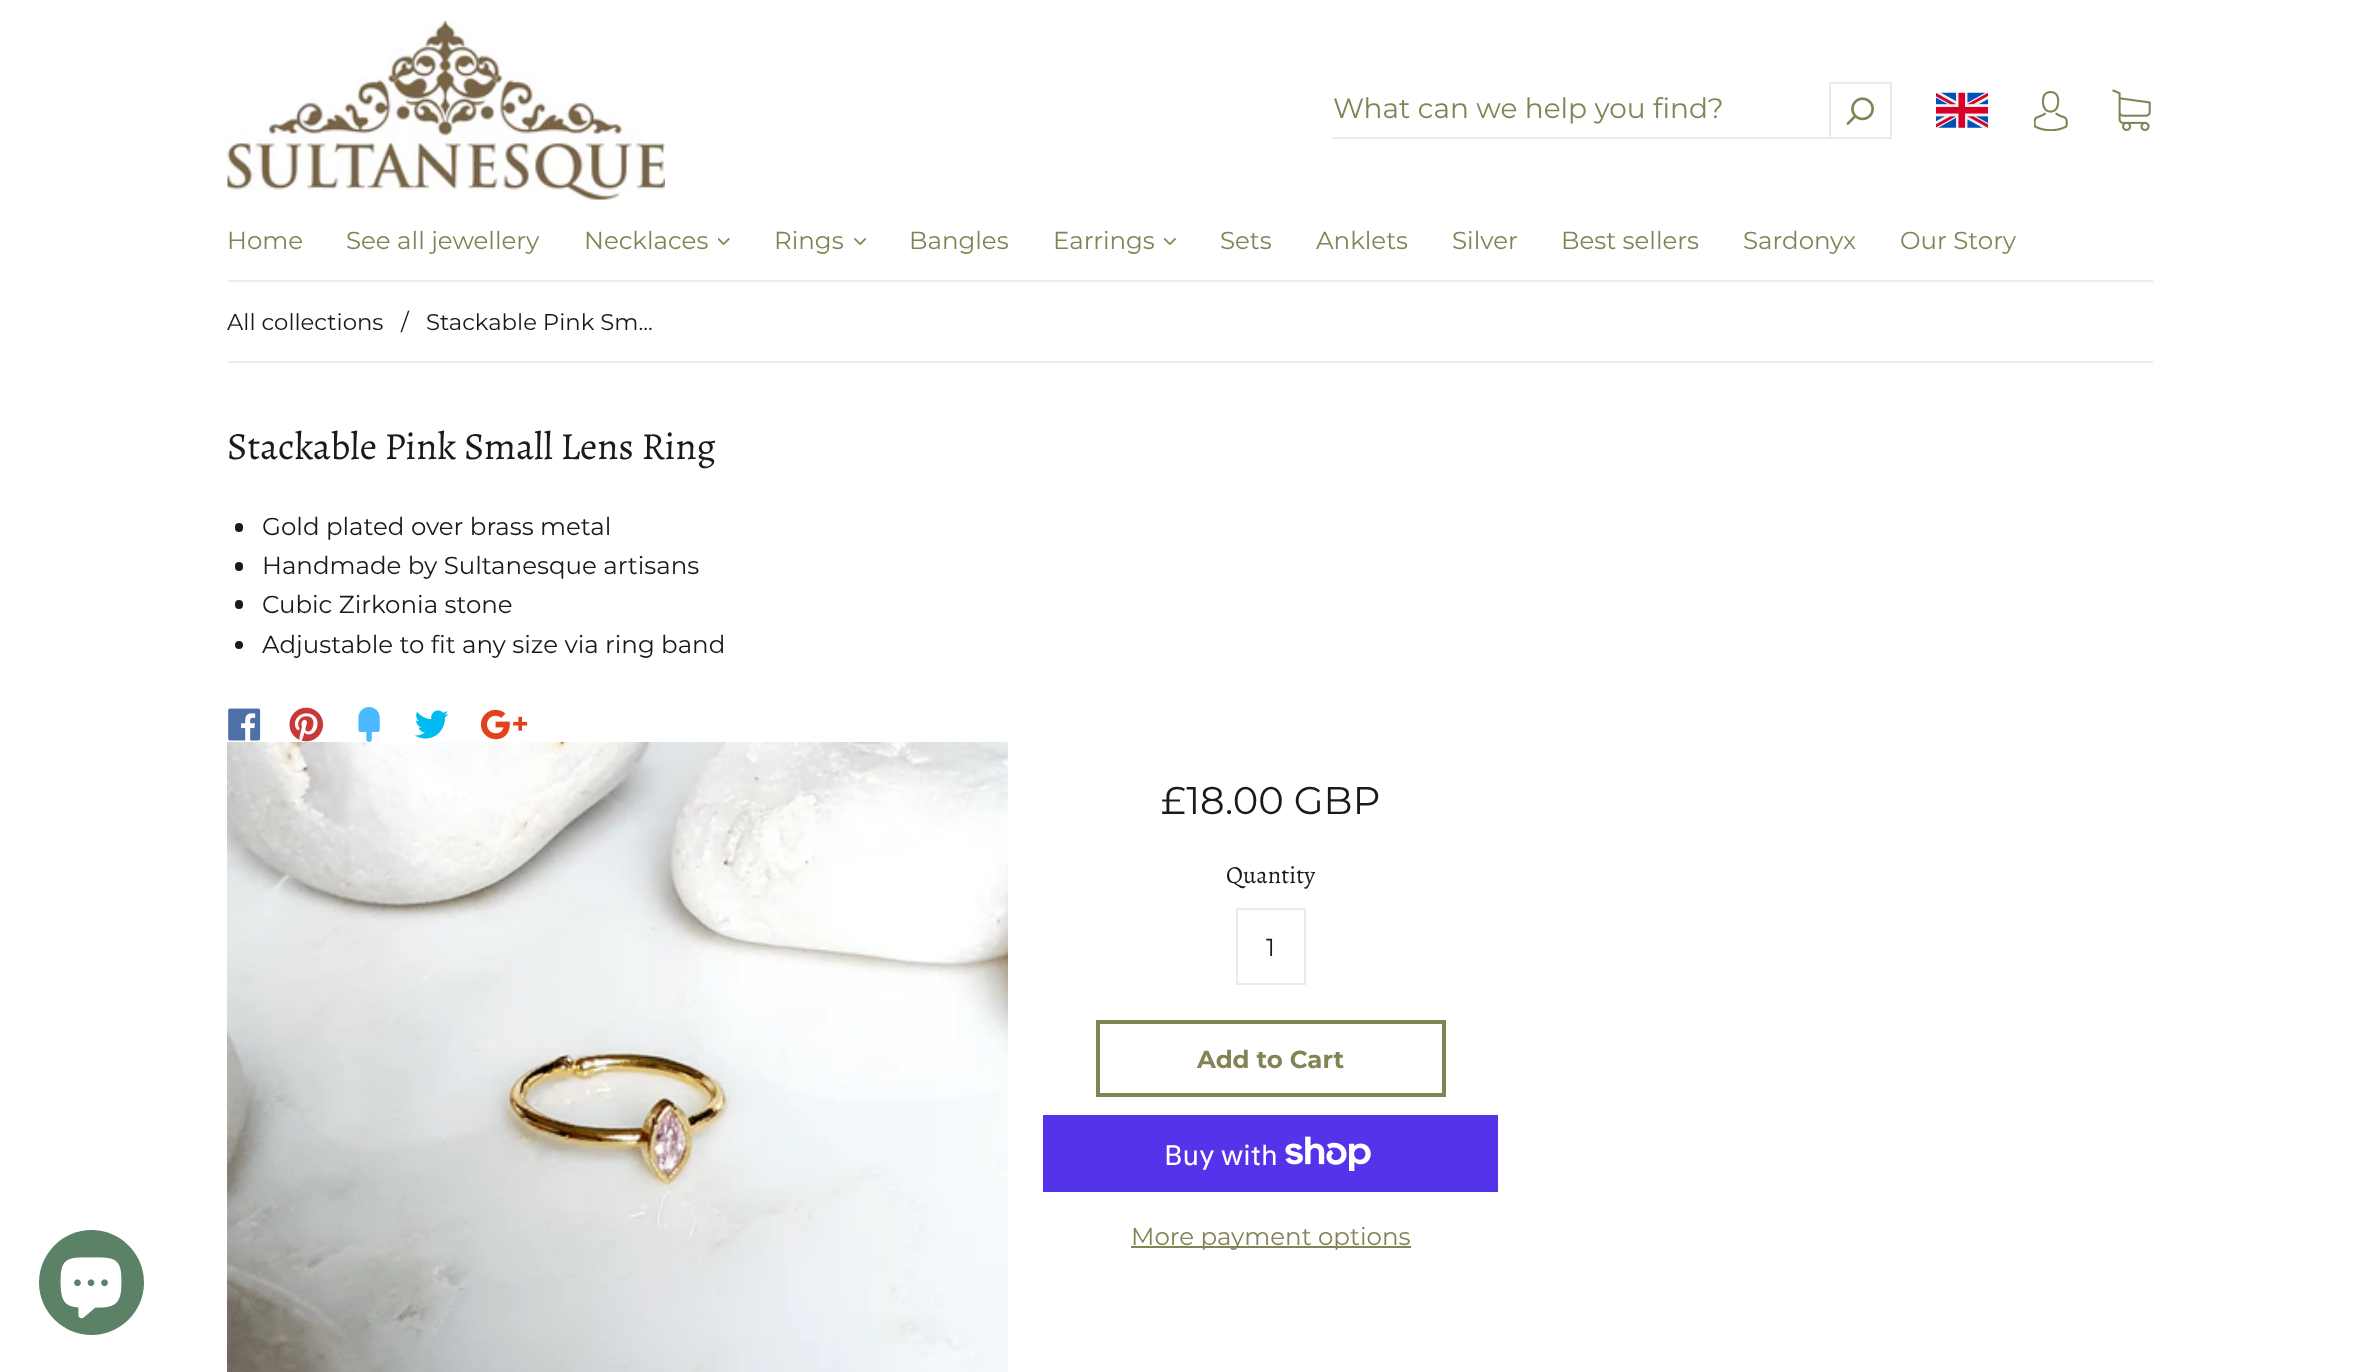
<svg xmlns="http://www.w3.org/2000/svg" width="2378" height="1372" viewBox="0 0 2378 1372">
  <rect width="100%" height="100%" fill="#fff"/>
  <image x="227" y="21" width="438" height="179" href="img/1.png"/>
  <path d="M1332 137h560v2H1332z" fill="#ebebeb"/>
  <path d="M1829 82h63v2H1829z" fill="#ebebeb"/>
  <path d="M1890 82h2v56H1890z" fill="#ebebeb"/>
  <path d="M1829 82h2v56H1829z" fill="#ebebeb"/>
  <image x="1846" y="97" width="28" height="28" href="img/2.png"/>
  <image x="1936" y="92" width="52" height="36" href="img/3.png"/>
  <image x="2034" y="91" width="34" height="40" href="img/4.png"/>
  <image x="2112" y="89" width="39" height="42" href="img/5.png"/>
  <path d="M228 280h1925v2H228z" fill="#ebebeb"/>
  <image x="718" y="238" width="12" height="7" href="img/6.png"/>
  <image x="854" y="238" width="12" height="7" href="img/7.png"/>
  <image x="1164" y="238" width="12" height="7" href="img/8.png"/>
  <path d="M228 361h1925v2H228z" fill="#ebebeb"/>
  <rect x="235" y="523" width="8" height="9" rx="4" fill="#1a1a1a"/>
  <rect x="235" y="562" width="8" height="9" rx="4" fill="#1a1a1a"/>
  <rect x="235" y="600" width="8" height="9" rx="4" fill="#1a1a1a"/>
  <circle cx="239" cy="645" r="4" fill="#1a1a1a"/>
  <image x="228" y="708" width="33" height="33" href="img/9.png"/>
  <image x="289" y="707" width="35" height="35" href="img/10.png"/>
  <image x="358" y="707" width="22" height="35" href="img/11.png"/>
  <image x="415" y="710" width="34" height="29" href="img/12.png"/>
  <image x="480" y="709" width="48" height="31" href="img/13.png"/>
  <image x="227" y="742" width="781" height="630" href="img/14.png"/>
  <path d="M1237 909h68v75H1237z" fill="none" stroke="#ebebeb" stroke-width="2"/>
  <path d="M1098 1022h346v73H1098z" fill="none" stroke="#828455" stroke-width="4"/>
  <path d="M1043 1115h455v77H1043z" fill="#5433eb"/>
  <image x="1285" y="1136" width="86" height="35" href="img/15.png"/>
  <path d="M1131 1246h280v2H1131z" fill="#828455"/>
  <circle cx="91.5" cy="1282.5" r="52.5" fill="#5b8167"/>
  <image x="60" y="1257" width="62" height="62" href="img/16.png"/>
  <text x="1333" y="118" font-family="Montserrat" font-size="28" fill="#828455">What can we help you find?</text>
  <g font-family="Montserrat" font-size="24.5" fill="#828455">
    <text x="227" y="249">Home</text>
    <text x="346" y="249">See all jewellery</text>
    <text x="584" y="249">Necklaces</text>
    <text x="774" y="249">Rings</text>
    <text x="909" y="249">Bangles</text>
    <text x="1053" y="249">Earrings</text>
    <text x="1220" y="249">Sets</text>
    <text x="1316" y="249">Anklets</text>
    <text x="1452" y="249">Silver</text>
    <text x="1561" y="249">Best sellers</text>
    <text x="1743" y="249">Sardonyx</text>
    <text x="1900" y="249">Our Story</text>
  </g>
  <g font-family="Montserrat" font-size="22.75" fill="#1a1a1a">
    <text x="227" y="330">All collections</text>
    <text x="401" y="330">/</text>
    <text x="426" y="330">Stackable Pink Sm...</text>
  </g>
  <text x="227" y="459" font-family="Alegreya" font-size="38.5" fill="#1a1a1a">Stackable Pink Small Lens Ring</text>
  <g font-family="Montserrat" font-size="24.5" fill="#1a1a1a">
    <text x="262" y="535">Gold plated over brass metal</text>
    <text x="262" y="574">Handmade by Sultanesque artisans</text>
    <text x="262" y="613">Cubic Zirkonia stone</text>
    <text x="262" y="653">Adjustable to fit any size via ring band</text>
  </g>
  <text x="1161" y="814" font-family="Montserrat" font-size="38.5" fill="#1a1a1a">£18.00 GBP</text>
  <text x="1226" y="883" font-family="Alegreya" font-size="24.5" fill="#1a1a1a">Quantity</text>
  <text x="1266" y="956" font-family="Montserrat" font-size="24.5" fill="#1a1a1a">1</text>
  <text x="1197" y="1068" font-family="Montserrat" font-size="24.5" font-weight="bold" fill="#828455">Add to Cart</text>
  <text x="1164" y="1165" font-family="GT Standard" font-size="28" fill="#fff">Buy with</text>
  <text x="1131" y="1245" font-family="Montserrat" font-size="24.5" fill="#828455">More payment options</text>
</svg>
